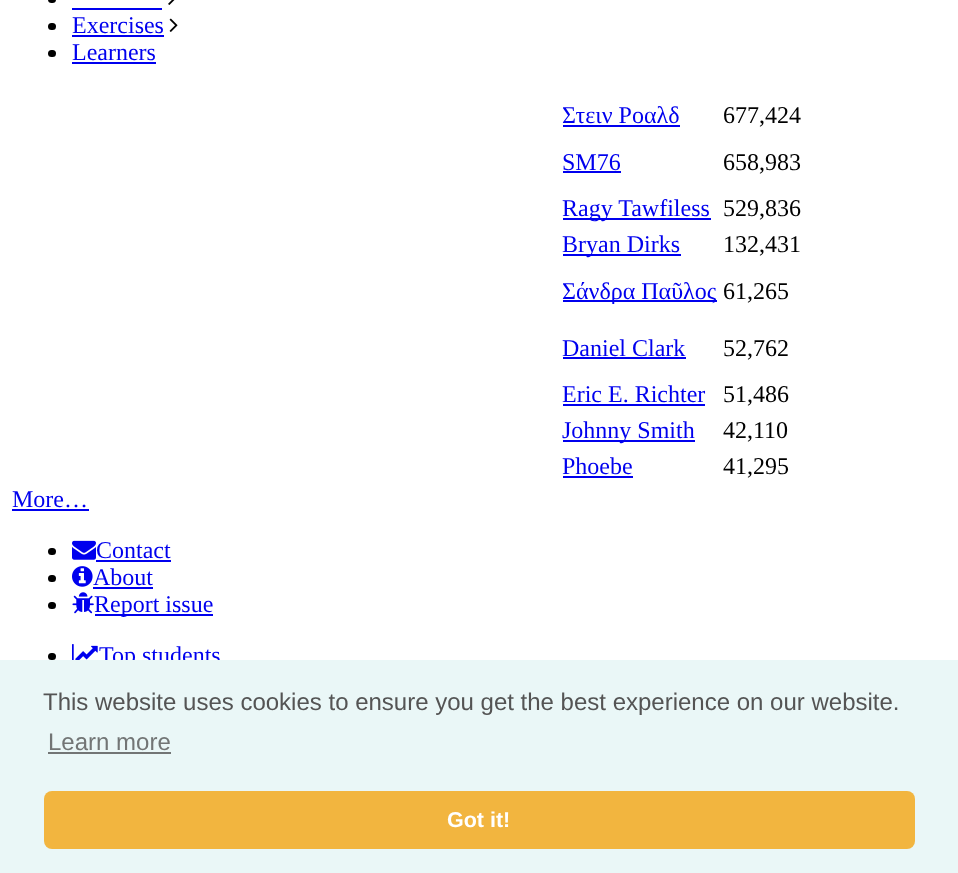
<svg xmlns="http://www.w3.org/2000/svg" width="958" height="873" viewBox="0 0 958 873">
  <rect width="100%" height="100%" fill="#fff"/>
  <rect x="48" y="-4" width="8" height="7" rx="3.5" fill="#000"/>
  <image x="168" y="0" width="7" height="5" href="img/1.png"/>
  <path d="M72 8h90v2H72z" fill="#00e"/>
  <rect x="48" y="23" width="8" height="7" rx="3.5" fill="#000"/>
  <path d="M72 35h92v2H72z" fill="#00e"/>
  <image x="169" y="18" width="9" height="14" href="img/2.png"/>
  <rect x="48" y="50" width="8" height="7" rx="3.5" fill="#000"/>
  <path d="M72 62h84v2H72z" fill="#00e"/>
  <path d="M563 125h117v2H563z" fill="#00e"/>
  <path d="M563 171h58v2H563z" fill="#00e"/>
  <path d="M563 218h148v2H563z" fill="#00e"/>
  <path d="M563 254h118v2H563z" fill="#00e"/>
  <path d="M563 300h154v2H563z" fill="#00e"/>
  <path d="M563 357h123v2H563z" fill="#00e"/>
  <path d="M563 404h142v2H563z" fill="#00e"/>
  <path d="M563 440h132v2H563z" fill="#00e"/>
  <path d="M563 476h70v2H563z" fill="#00e"/>
  <path d="M12 509h77v2H12z" fill="#00e"/>
  <rect x="48" y="548" width="8" height="7" rx="3.5" fill="#000"/>
  <image x="72" y="540" width="24" height="20" href="img/3.png"/>
  <path d="M96 560h75v2H96z" fill="#00e"/>
  <rect x="48" y="575" width="8" height="7" rx="3.5" fill="#000"/>
  <path d="M93 587h60v2H93z" fill="#00e"/>
  <rect x="48" y="602" width="8" height="7" rx="3.5" fill="#000"/>
  <image x="72" y="592" width="22" height="22" href="img/5.png"/>
  <path d="M95 614h118v2H95z" fill="#00e"/>
  <rect x="48" y="653" width="8" height="7" rx="3.5" fill="#000"/>
  <image x="72" y="644" width="26" height="16" href="img/6.png"/>
  <g font-family="Liberation Serif" font-size="24" fill="#00e">
    <text x="72" y="33">Exercises</text>
    <text x="72" y="60">Learners</text>
    <text x="562" y="123">Στειν Ροαλδ</text>
  </g>
  <text x="723" y="123" font-family="Liberation Serif" font-size="24" fill="#000">677,424</text>
  <text x="562" y="170" font-family="Liberation Serif" font-size="24" fill="#00e">SM76</text>
  <text x="723" y="170" font-family="Liberation Serif" font-size="24" fill="#000">658,983</text>
  <text x="562" y="216" font-family="Liberation Serif" font-size="24" fill="#00e">Ragy Tawfiless</text>
  <text x="723" y="216" font-family="Liberation Serif" font-size="24" fill="#000">529,836</text>
  <text x="562" y="252" font-family="Liberation Serif" font-size="24" fill="#00e">Bryan Dirks</text>
  <text x="723" y="252" font-family="Liberation Serif" font-size="24" fill="#000">132,431</text>
  <text x="562" y="299" font-family="Liberation Serif" font-size="24" fill="#00e">Σάνδρα Παῦλος</text>
  <text x="723" y="299" font-family="Liberation Serif" font-size="24" fill="#000">61,265</text>
  <text x="562" y="356" font-family="Liberation Serif" font-size="24" fill="#00e">Daniel Clark</text>
  <text x="723" y="356" font-family="Liberation Serif" font-size="24" fill="#000">52,762</text>
  <text x="562" y="402" font-family="Liberation Serif" font-size="24" fill="#00e">Eric E. Richter</text>
  <text x="723" y="402" font-family="Liberation Serif" font-size="24" fill="#000">51,486</text>
  <text x="562" y="438" font-family="Liberation Serif" font-size="24" fill="#00e">Johnny Smith</text>
  <text x="723" y="438" font-family="Liberation Serif" font-size="24" fill="#000">42,110</text>
  <text x="562" y="474" font-family="Liberation Serif" font-size="24" fill="#00e">Phoebe</text>
  <text x="723" y="474" font-family="Liberation Serif" font-size="24" fill="#000">41,295</text>
  <g font-family="Liberation Serif" font-size="24" fill="#00e">
    <text x="12" y="507">More…</text>
    <text x="96" y="558">Contact</text>
    <text x="93" y="585">About</text>
  </g>
  <image x="72" y="566" width="21" height="21" href="img/4.png"/>
  <g font-family="Liberation Serif" font-size="24" fill="#00e">
    <text x="94" y="612">Report issue</text>
    <text x="99" y="663">Top students</text>
  </g>
  <path d="M0 660h958v213H0z" fill="#eaf7f7"/>
  <text x="43" y="710" font-family="Liberation Sans" font-size="24" fill="#545454">This website uses cookies to ensure you get the best experience on our website.</text>
  <text x="48" y="750" font-family="Liberation Sans" font-size="24" fill="#727575">Learn more</text>
  <path d="M48 752h123v2H48z" fill="#727575"/>
  <rect x="44" y="791" width="871" height="58" rx="8" fill="#f2b53f"/>
  <text x="447" y="827" font-family="Liberation Sans" font-size="21.5" font-weight="bold" fill="#fff">Got it!</text>
</svg>
